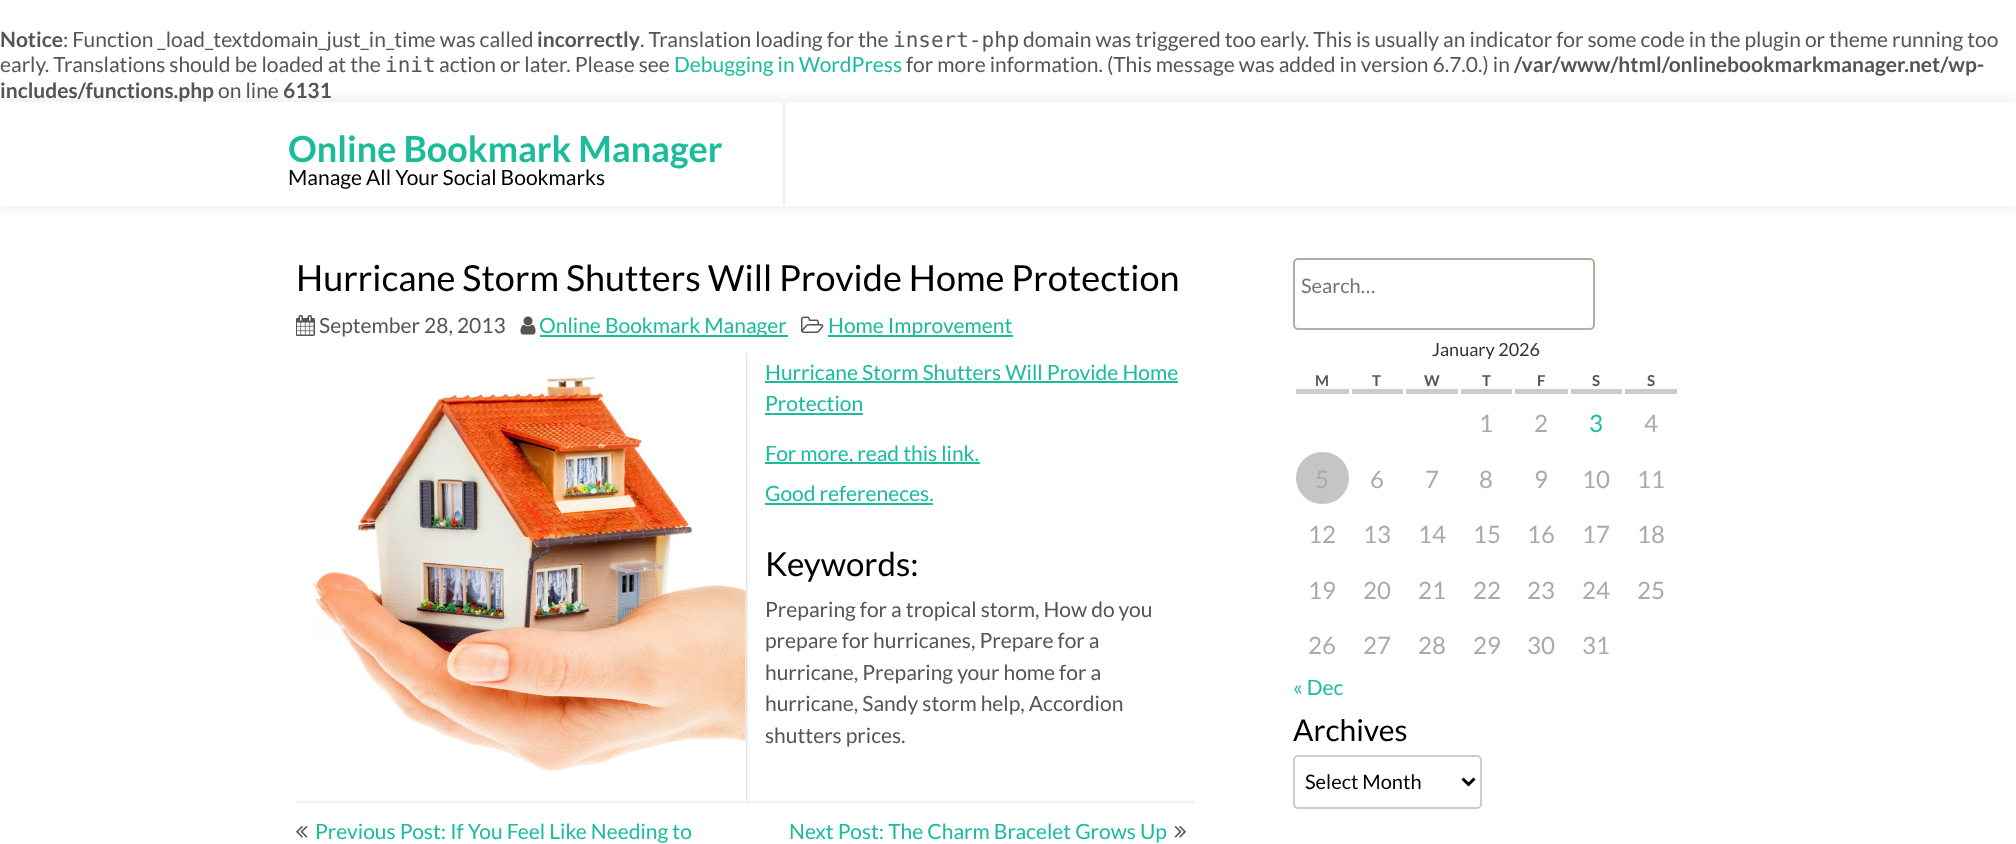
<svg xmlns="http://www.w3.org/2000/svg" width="2016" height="844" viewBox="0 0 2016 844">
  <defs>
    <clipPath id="clip1"><path d="M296 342h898v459H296z"/></clipPath>
    <clipPath id="clip2"><path d="M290 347H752V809H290ZM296 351H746V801H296Z" clip-rule="evenodd"/></clipPath>
  </defs>
  <rect width="100%" height="100%" fill="#fff"/>
  <path d="M0 102h2016v104H0z" fill="#0000001a" filter="blur(7.5px)"/>
  <path d="M0 102h2016v104H0z" fill="#fff"/>
  <path d="M783 102h2v104H783z" fill="#eee"/>
  <image x="296" y="315" width="19" height="21" href="img/1.png"/>
  <image x="520" y="316" width="16" height="19" href="img/2.png"/>
  <path d="M540 335h248v2H540z" fill="#1abc9c"/>
  <image x="801" y="316" width="23" height="17" href="img/3.png"/>
  <path d="M828 335h185v2H828z" fill="#1abc9c"/>
  <path d="M295.5 802H1194" fill="none" stroke="#ddd" stroke-width="1.5" stroke-dasharray="1.5 1.5"/>
  <g clip-path="url(#clip1)">
    <g clip-path="url(#clip2)">
      <path d="M296 353h450v450H296z" fill="#0000004d" filter="blur(1.5px)"/>
    </g>
  </g>
  <image x="312" y="352" width="434" height="449" href="img/4.png"/>
  <path d="M765 381h413v2H765z" fill="#1abc9c"/>
  <path d="M765 413h98v2H765z" fill="#1abc9c"/>
  <path d="M765 462h215v2H765z" fill="#1abc9c"/>
  <path d="M765 503h168v2H765z" fill="#1abc9c"/>
  <image x="296" y="826" width="12" height="12" href="img/5.png"/>
  <image x="1174" y="826" width="12" height="12" href="img/6.png"/>
  <rect x="1294" y="259" width="300" height="70" rx="4" fill="none" stroke="#b2aea3" stroke-width="2"/>
  <rect x="1535" y="260" width="58" height="48" rx="5" fill="#fff"/>
  <path d="M1296 389h53v5H1296z" fill="#ccc"/>
  <path d="M1352 389h51v5H1352z" fill="#ccc"/>
  <path d="M1406 389h52v5H1406z" fill="#ccc"/>
  <path d="M1461 389h51v5H1461z" fill="#ccc"/>
  <path d="M1515 389h53v5H1515z" fill="#ccc"/>
  <path d="M1571 389h51v5H1571z" fill="#ccc"/>
  <path d="M1625 389h52v5H1625z" fill="#ccc"/>
  <rect x="1296" y="452" width="53" height="52" rx="26" fill="#c5c5c5"/>
  <rect x="1294" y="756" width="187" height="52" rx="4" fill="none" stroke="#ccc" stroke-width="2"/>
  <path d="M1462.5 778.5L1468.5 784.5L1474.5 778.5" fill="none" stroke="#000" stroke-width="3"/>
  <text x="0" y="47" font-family="Lato" font-size="21" font-weight="bold" fill="#555">Notice</text>
  <text x="63" y="47" font-family="Lato" font-size="21" fill="#555">: Function _load_textdomain_just_in_time was called</text>
  <text x="537" y="47" font-family="Lato" font-size="21" font-weight="bold" fill="#555">incorrectly</text>
  <text x="640" y="47" font-family="Lato" font-size="21" fill="#555">. Translation loading for the</text>
  <text x="893" y="47" font-family="DejaVu Sans Mono" font-size="21" fill="#555">insert-php</text>
  <g font-family="Lato" font-size="21" fill="#555">
    <text x="1023" y="47">domain was triggered too early. This is usually an indicator for some code in the plugin or theme running too</text>
    <text x="0" y="72">early. Translations should be loaded at the</text>
  </g>
  <text x="385" y="72" font-family="DejaVu Sans Mono" font-size="21" fill="#555">init</text>
  <text x="439" y="72" font-family="Lato" font-size="21" fill="#555">action or later. Please see</text>
  <text x="674" y="72" font-family="Lato" font-size="21" fill="#1abc9c">Debugging in WordPress</text>
  <text x="906" y="72" font-family="Lato" font-size="21" fill="#555">for more information. (This message was added in version 6.7.0.) in</text>
  <g font-family="Lato" font-size="21" font-weight="bold" fill="#555">
    <text x="1514" y="72">/var/www/html/onlinebookmarkmanager.net/wp-</text>
    <text x="0" y="98">includes/functions.php</text>
  </g>
  <text x="218" y="98" font-family="Lato" font-size="21" fill="#555">on line</text>
  <text x="283" y="98" font-family="Lato" font-size="21" font-weight="bold" fill="#555">6131</text>
  <text x="288" y="162" font-family="Lato" font-size="36" font-weight="bold" fill="#1abc9c">Online Bookmark Manager</text>
  <text x="288" y="185" font-family="Lato" font-size="21" fill="#000">Manage All Your Social Bookmarks</text>
  <text x="296" y="291" font-family="Lato" font-size="36" fill="#000">Hurricane Storm Shutters Will Provide Home Protection</text>
  <text x="319" y="333" font-family="Lato" font-size="21" fill="#555">September 28, 2013</text>
  <g font-family="Lato" font-size="21" fill="#1abc9c">
    <text x="539" y="333">Online Bookmark Manager</text>
    <text x="828" y="333">Home Improvement</text>
    <text x="765" y="380">Hurricane Storm Shutters Will Provide Home</text>
    <text x="765" y="411">Protection</text>
    <text x="765" y="461">For more, read this link.</text>
    <text x="765" y="501">Good refereneces.</text>
  </g>
  <text x="765" y="576" font-family="Lato" font-size="33" fill="#000">Keywords:</text>
  <g font-family="Lato" font-size="21" fill="#555">
    <text x="765" y="617">Preparing for a tropical storm, How do you</text>
    <text x="765" y="648">prepare for hurricanes, Prepare for a</text>
    <text x="765" y="680">hurricane, Preparing your home for a</text>
    <text x="765" y="711">hurricane, Sandy storm help, Accordion</text>
    <text x="765" y="743">shutters prices.</text>
  </g>
  <g font-family="Lato" font-size="21" fill="#1abc9c">
    <text x="315" y="839">Previous Post: If You Feel Like Needing to</text>
    <text x="789" y="839">Next Post: The Charm Bracelet Grows Up</text>
  </g>
  <text x="1301" y="293" font-family="Lato" font-size="20" fill="#757575">Search…</text>
  <text x="1432" y="356" font-family="Lato" font-size="18" fill="#333">January 2026</text>
  <g font-family="Lato" font-size="15" font-weight="bold" fill="#555">
    <text x="1315" y="386">M</text>
    <text x="1372" y="386">T</text>
    <text x="1424" y="386">W</text>
    <text x="1482" y="386">T</text>
    <text x="1537" y="386">F</text>
    <text x="1592" y="386">S</text>
    <text x="1647" y="386">S</text>
  </g>
  <g font-family="Lato" font-size="24" fill="#aaa">
    <text x="1479" y="432">1</text>
    <text x="1534" y="432">2</text>
  </g>
  <text x="1589" y="432" font-family="Lato" font-size="24" fill="#1abc9c">3</text>
  <g font-family="Lato" font-size="24" fill="#aaa">
    <text x="1644" y="432">4</text>
    <text x="1315" y="488">5</text>
    <text x="1370" y="488">6</text>
    <text x="1425" y="488">7</text>
    <text x="1479" y="488">8</text>
    <text x="1534" y="488">9</text>
    <text x="1582" y="488">10</text>
    <text x="1637" y="488">11</text>
    <text x="1308" y="543">12</text>
    <text x="1363" y="543">13</text>
    <text x="1418" y="543">14</text>
    <text x="1473" y="543">15</text>
    <text x="1527" y="543">16</text>
    <text x="1582" y="543">17</text>
    <text x="1637" y="543">18</text>
    <text x="1308" y="599">19</text>
    <text x="1363" y="599">20</text>
    <text x="1418" y="599">21</text>
    <text x="1473" y="599">22</text>
    <text x="1527" y="599">23</text>
    <text x="1582" y="599">24</text>
    <text x="1637" y="599">25</text>
    <text x="1308" y="654">26</text>
    <text x="1363" y="654">27</text>
    <text x="1418" y="654">28</text>
    <text x="1473" y="654">29</text>
    <text x="1527" y="654">30</text>
    <text x="1582" y="654">31</text>
  </g>
  <text x="1293" y="695" font-family="Lato" font-size="21" fill="#1abc9c">« Dec</text>
  <text x="1293" y="741" font-family="Lato" font-size="30" fill="#000">Archives</text>
  <text x="1305" y="789" font-family="Lato" font-size="20" fill="#000">Select Month</text>
</svg>
